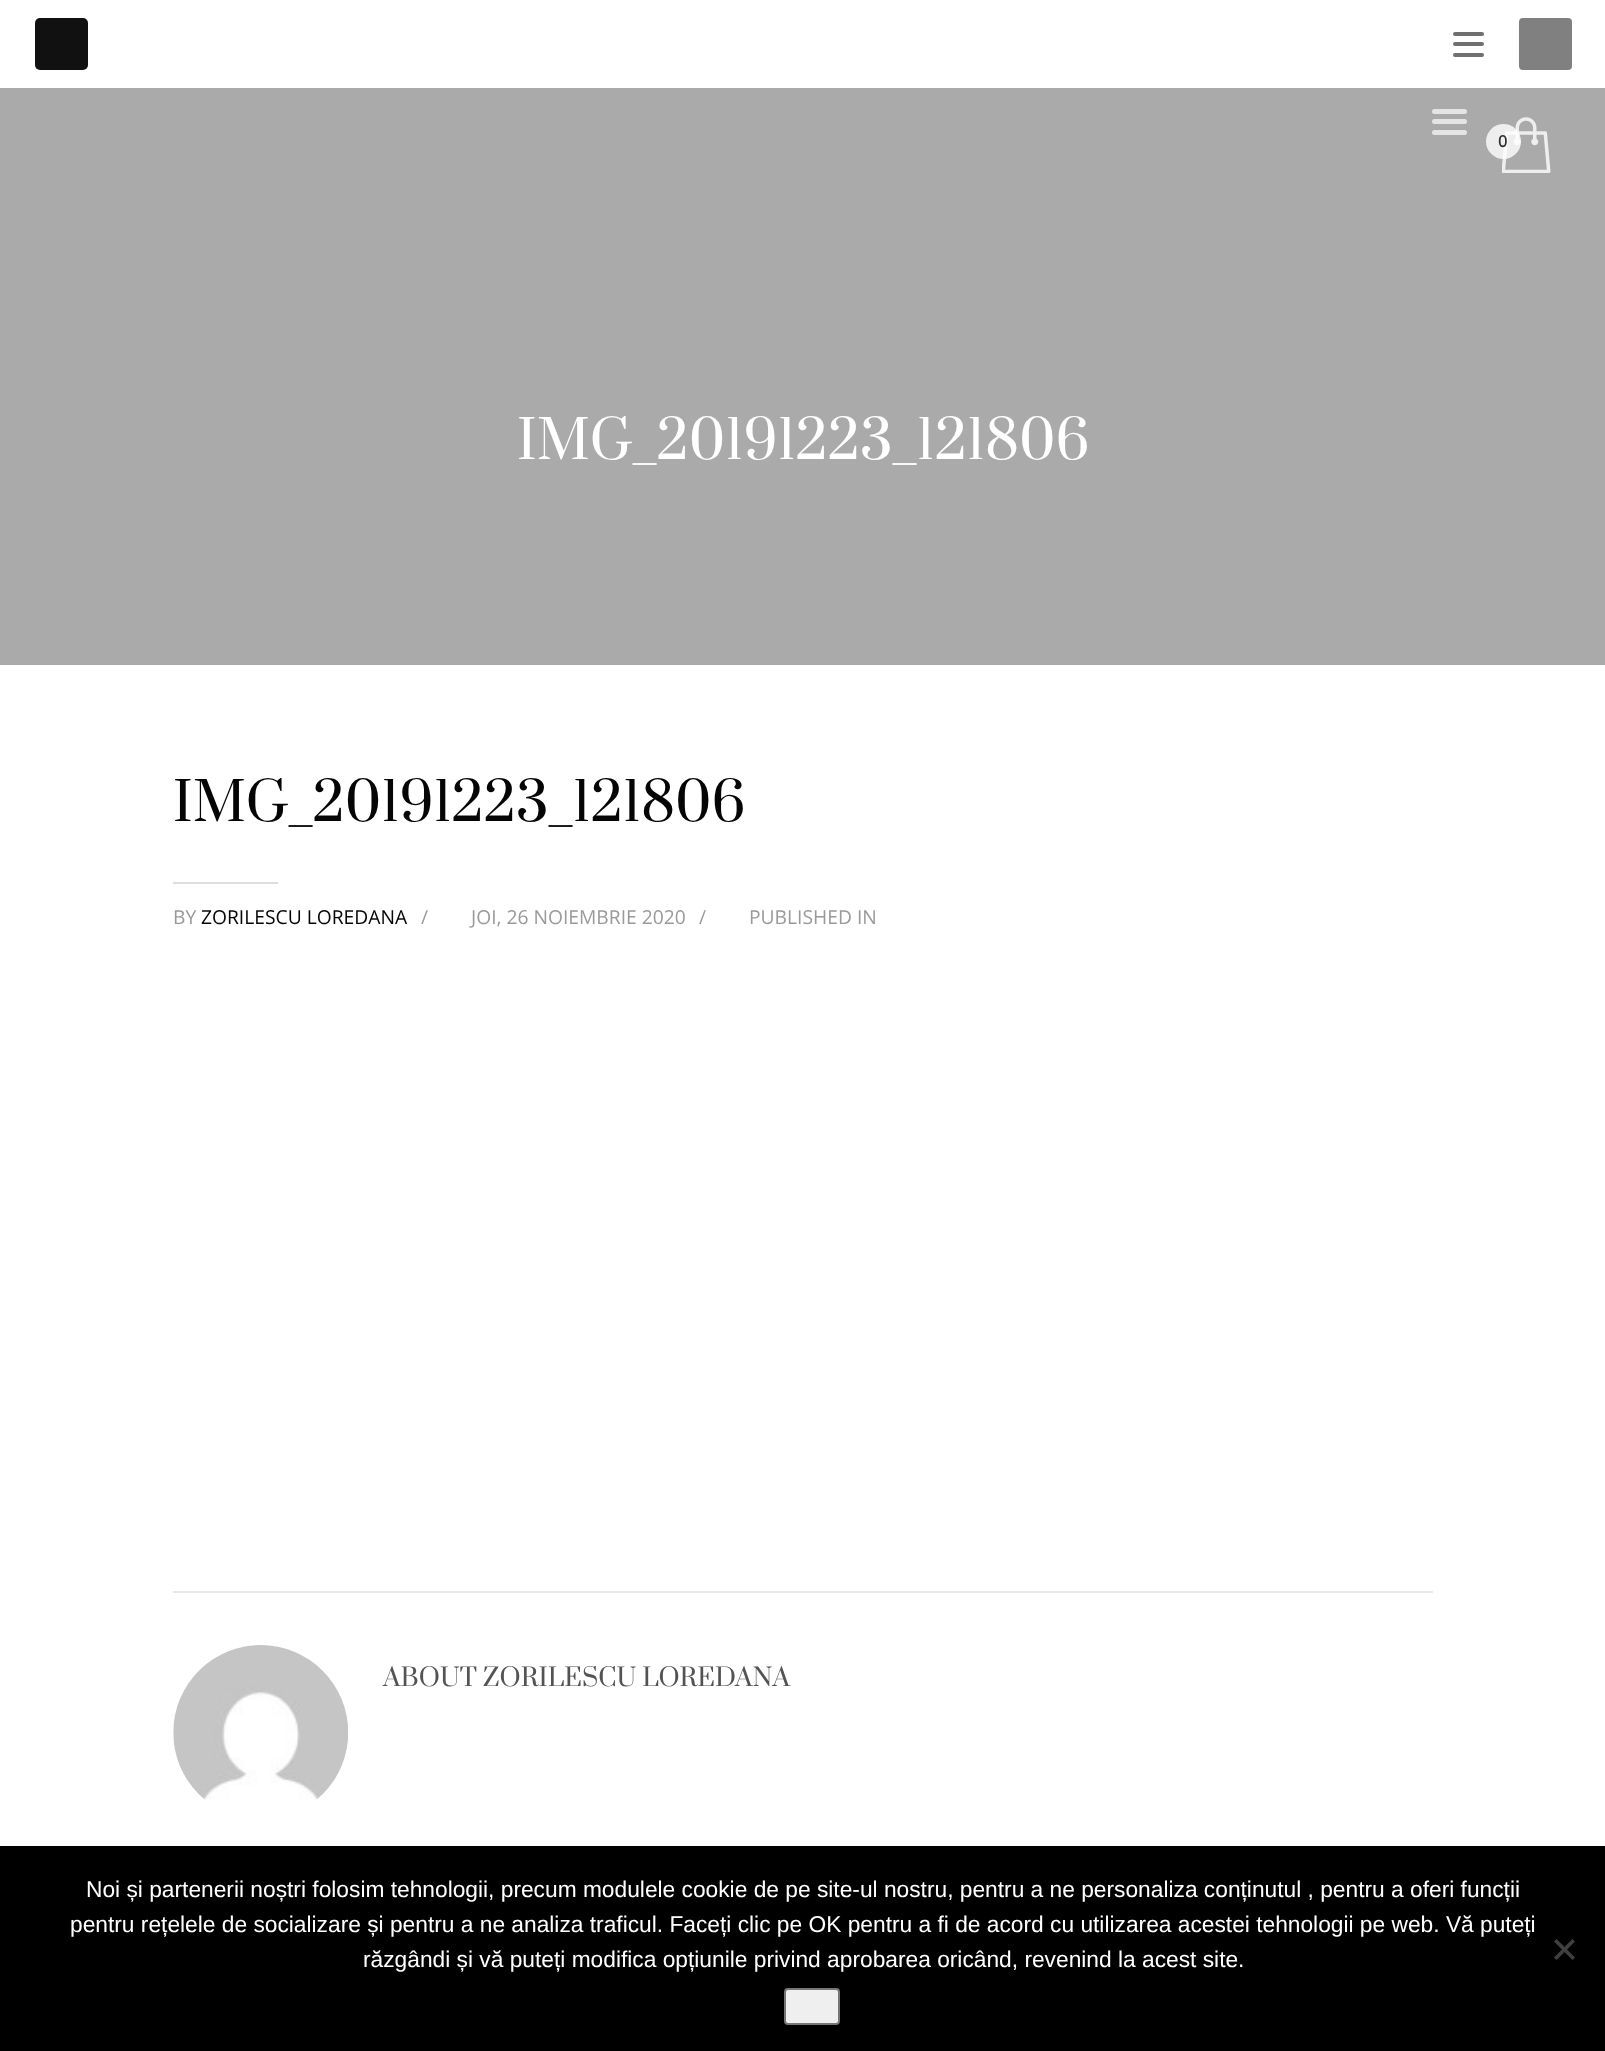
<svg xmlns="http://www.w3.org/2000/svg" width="1605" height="2051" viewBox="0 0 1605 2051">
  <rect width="100%" height="100%" fill="#fff"/>
  <rect x="35" y="18" width="53" height="52" rx="5" fill="#111"/>
  <rect x="1453" y="53" width="31" height="4" rx="2" fill="#707070"/>
  <rect x="1453" y="42" width="31" height="4" rx="2" fill="#707070"/>
  <rect x="1453" y="32" width="31" height="4" rx="2" fill="#707070"/>
  <rect x="1519" y="18" width="53" height="52" rx="4" fill="#808080"/>
  <path d="M0 88h1605v577H0z" fill="#aaa"/>
  <rect x="1432" y="109" width="35" height="5" rx="2.5" fill="#e4e4e4"/>
  <rect x="1432" y="119" width="35" height="5" rx="2.5" fill="#e4e4e4"/>
  <rect x="1432" y="130" width="35" height="5" rx="2.5" fill="#e4e4e4"/>
  <image x="1502" y="117" width="49" height="56" href="img/1.png"/>
  <circle cx="1503.5" cy="141.5" r="17.5" fill="#ffffffcc"/>
  <path d="M173 882h105v2H173z" fill="#ddd"/>
  <path d="M173 1591h1260v2H173z" fill="#e9e9e9"/>
  <image x="173" y="1645" width="175" height="155" href="img/2.png"/>
  <path d="M0 1846h1605v205H0z" fill="#000"/>
  <path d="M1572.5 1939L1575 1941.5L1556.5 1960L1554 1957.5Z" fill="#404040"/>
  <path d="M1554 1941.5L1556.5 1939L1575 1957.5L1572.5 1960Z" fill="#404040"/>
  <rect x="785" y="1989" width="54" height="35" rx="3" fill="#efefef" stroke="#767676" stroke-width="2"/>
  <text x="1498" y="147" font-family="Open Sans" font-size="16" font-weight="bold" fill="#303030">0</text>
  <text x="517" y="459" font-family="Prata" font-size="52.5" fill="#fff">IMG_20191223_121806</text>
  <text x="173" y="821" font-family="Prata" font-size="52.5" fill="#050505">IMG_20191223_121806</text>
  <text x="173" y="924" font-family="Open Sans" font-size="19.25" fill="#9a9a9a">BY</text>
  <text x="201" y="924" font-family="Open Sans" font-size="19.25" fill="#050505">ZORILESCU LOREDANA</text>
  <g font-family="Open Sans" font-size="19.25" fill="#9a9a9a">
    <text x="421" y="924">/</text>
    <text x="471" y="924">JOI, 26 NOIEMBRIE 2020</text>
    <text x="699" y="924">/</text>
    <text x="749" y="924">PUBLISHED IN</text>
  </g>
  <text x="383" y="1686" font-family="Prata" font-size="24.5" fill="#535353">ABOUT ZORILESCU LOREDANA</text>
  <g font-family="Liberation Sans" font-size="22.75" fill="#fff">
    <text x="86" y="1897">Noi și partenerii noștri folosim tehnologii, precum modulele cookie de pe site-ul nostru, pentru a ne personaliza conținutul , pentru a oferi funcții</text>
    <text x="70" y="1932">pentru rețelele de socializare și pentru a ne analiza traficul. Faceți clic pe OK pentru a fi de acord cu utilizarea acestei tehnologii pe web. Vă puteți</text>
    <text x="363" y="1967">răzgândi și vă puteți modifica opțiunile privind aprobarea oricând, revenind la acest site.</text>
  </g>
</svg>
